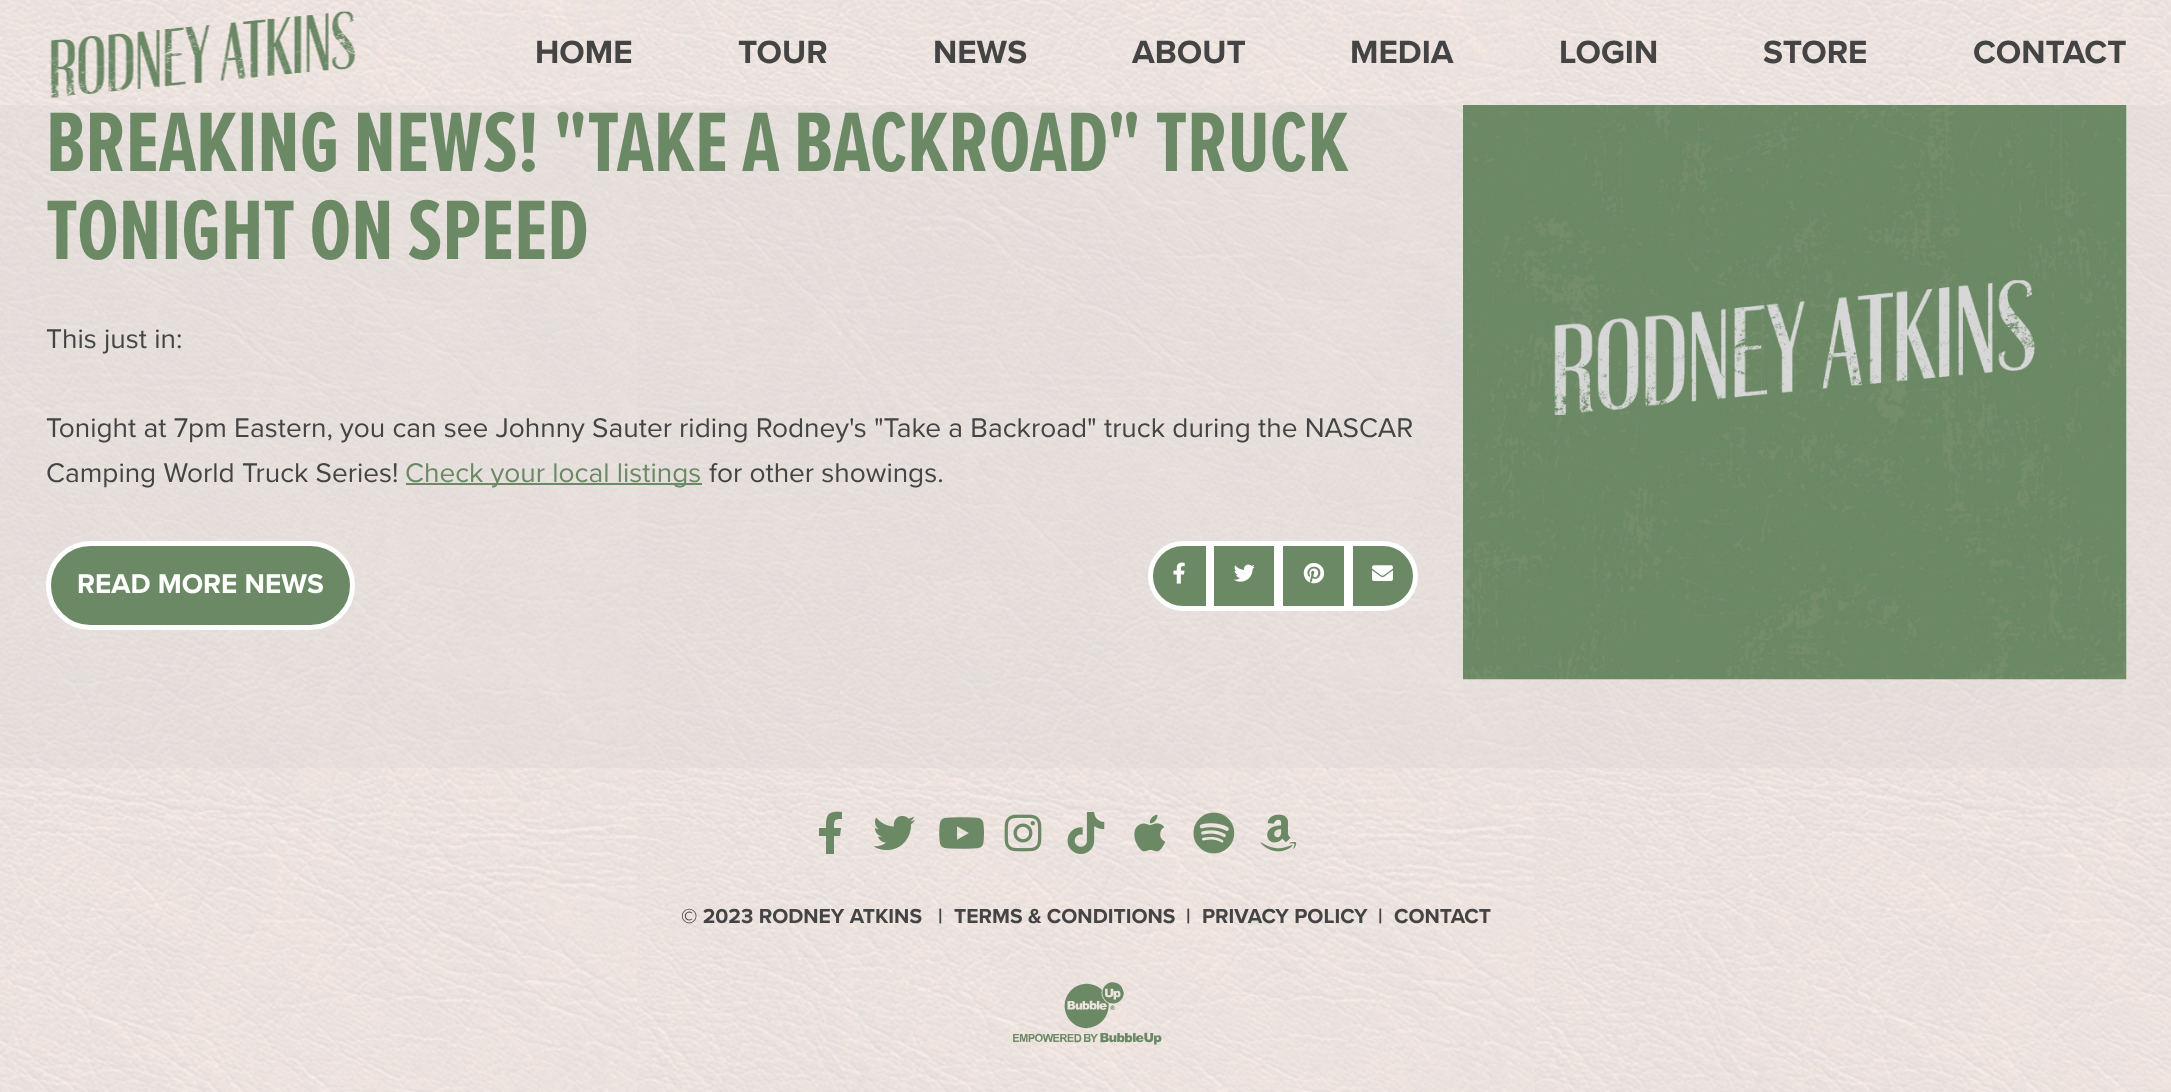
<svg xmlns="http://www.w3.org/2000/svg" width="2171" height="1092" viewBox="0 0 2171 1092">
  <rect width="100%" height="100%" fill="#fff"/>
  <image x="0" y="105" width="2171" height="987" href="img/1.png"/>
  <path d="M0 105h2171v663H0z" fill="#d7d7d74d"/>
  <image x="0" y="0" width="2171" height="105" href="img/2.png"/>
  <image x="50" y="11" width="306" height="87" href="img/3.png"/>
  <path d="M406 483h296v2H406z" fill="#6c8966"/>
  <rect x="48.5" y="543.5" width="304" height="84" rx="42" fill="#6c8966" stroke="#fff" stroke-width="5"/>
  <path d="M1183 543.5H1208.5V608.5H1183C1165 608.5 1150.5 594 1150.5 576C1150.5 558 1165 543.5 1183 543.5Z" fill="#6c8966" stroke="#fff" stroke-width="5"/>
  <image x="1173" y="562" width="12" height="22" href="img/4.png"/>
  <path d="M1211.5 543.5h65v65H1211.5z" fill="#6c8966" stroke="#fff" stroke-width="5"/>
  <image x="1234" y="564" width="21" height="18" href="img/5.png"/>
  <path d="M1280.5 543.5h66v65H1280.5z" fill="#6c8966" stroke="#fff" stroke-width="5"/>
  <image x="1303" y="563" width="22" height="21" href="img/6.png"/>
  <path d="M1350.5 543.5H1383C1401 543.5 1415.5 558 1415.5 576C1415.5 594 1401 608.5 1383 608.5H1350.5Z" fill="#6c8966" stroke="#fff" stroke-width="5"/>
  <image x="1372" y="565" width="21" height="16" href="img/7.png"/>
  <image x="1463" y="105" width="664" height="575" href="img/8.png"/>
  <path d="M840 836H834V854H826V836H819V828H826C826 814 828 811 842 812V819C834 819 834 820 834 828H841Z" fill="#6c8966"/>
  <image x="873" y="815" width="42" height="36" href="img/9.png"/>
  <image x="939" y="817" width="45" height="32" href="img/10.png"/>
  <image x="1004" y="814" width="38" height="38" href="img/11.png"/>
  <image x="1067" y="812" width="38" height="42" href="img/12.png"/>
  <image x="1134" y="814" width="32" height="38" href="img/13.png"/>
  <image x="1193" y="812" width="42" height="42" href="img/14.png"/>
  <image x="1260" y="814" width="37" height="38" href="img/15.png"/>
  <image x="1013" y="982" width="149" height="63" href="img/16.png"/>
  <g font-family="Proxima Nova" font-size="33.25" font-weight="bold" fill="#444">
    <text x="535" y="63">HOME</text>
    <text x="738" y="63">TOUR</text>
    <text x="933" y="63">NEWS</text>
    <text x="1132" y="63">ABOUT</text>
    <text x="1350" y="63">MEDIA</text>
    <text x="1559" y="63">LOGIN</text>
    <text x="1763" y="63">STORE</text>
    <text x="1973" y="63">CONTACT</text>
  </g>
  <g font-family="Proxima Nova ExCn" font-size="87.5" font-weight="bold" fill="#6c8966">
    <text x="46" y="171">BREAKING NEWS! "TAKE A BACKROAD" TRUCK</text>
    <text x="46" y="259">TONIGHT ON SPEED</text>
  </g>
  <g font-family="Proxima Nova" font-size="28" fill="#444">
    <text x="46" y="348">This just in:</text>
    <text x="46" y="437">Tonight at 7pm Eastern, you can see Johnny Sauter riding Rodney's "Take a Backroad" truck during the NASCAR</text>
    <text x="46" y="482">Camping World Truck Series!</text>
  </g>
  <text x="405" y="482" font-family="Proxima Nova" font-size="28" fill="#6c8966">Check your local listings</text>
  <text x="709" y="482" font-family="Proxima Nova" font-size="28" fill="#444">for other showings.</text>
  <text x="77" y="593" font-family="Proxima Nova" font-size="28" font-weight="bold" fill="#fff">READ MORE NEWS</text>
  <g font-family="Proxima Nova" font-size="21" font-weight="bold" fill="#444">
    <text x="681" y="923">© 2023 RODNEY ATKINS</text>
    <text x="938" y="923">|</text>
    <text x="954" y="923">TERMS &amp; CONDITIONS</text>
    <text x="1186" y="923">|</text>
    <text x="1202" y="923">PRIVACY POLICY</text>
    <text x="1378" y="923">|</text>
    <text x="1394" y="923">CONTACT</text>
  </g>
</svg>
